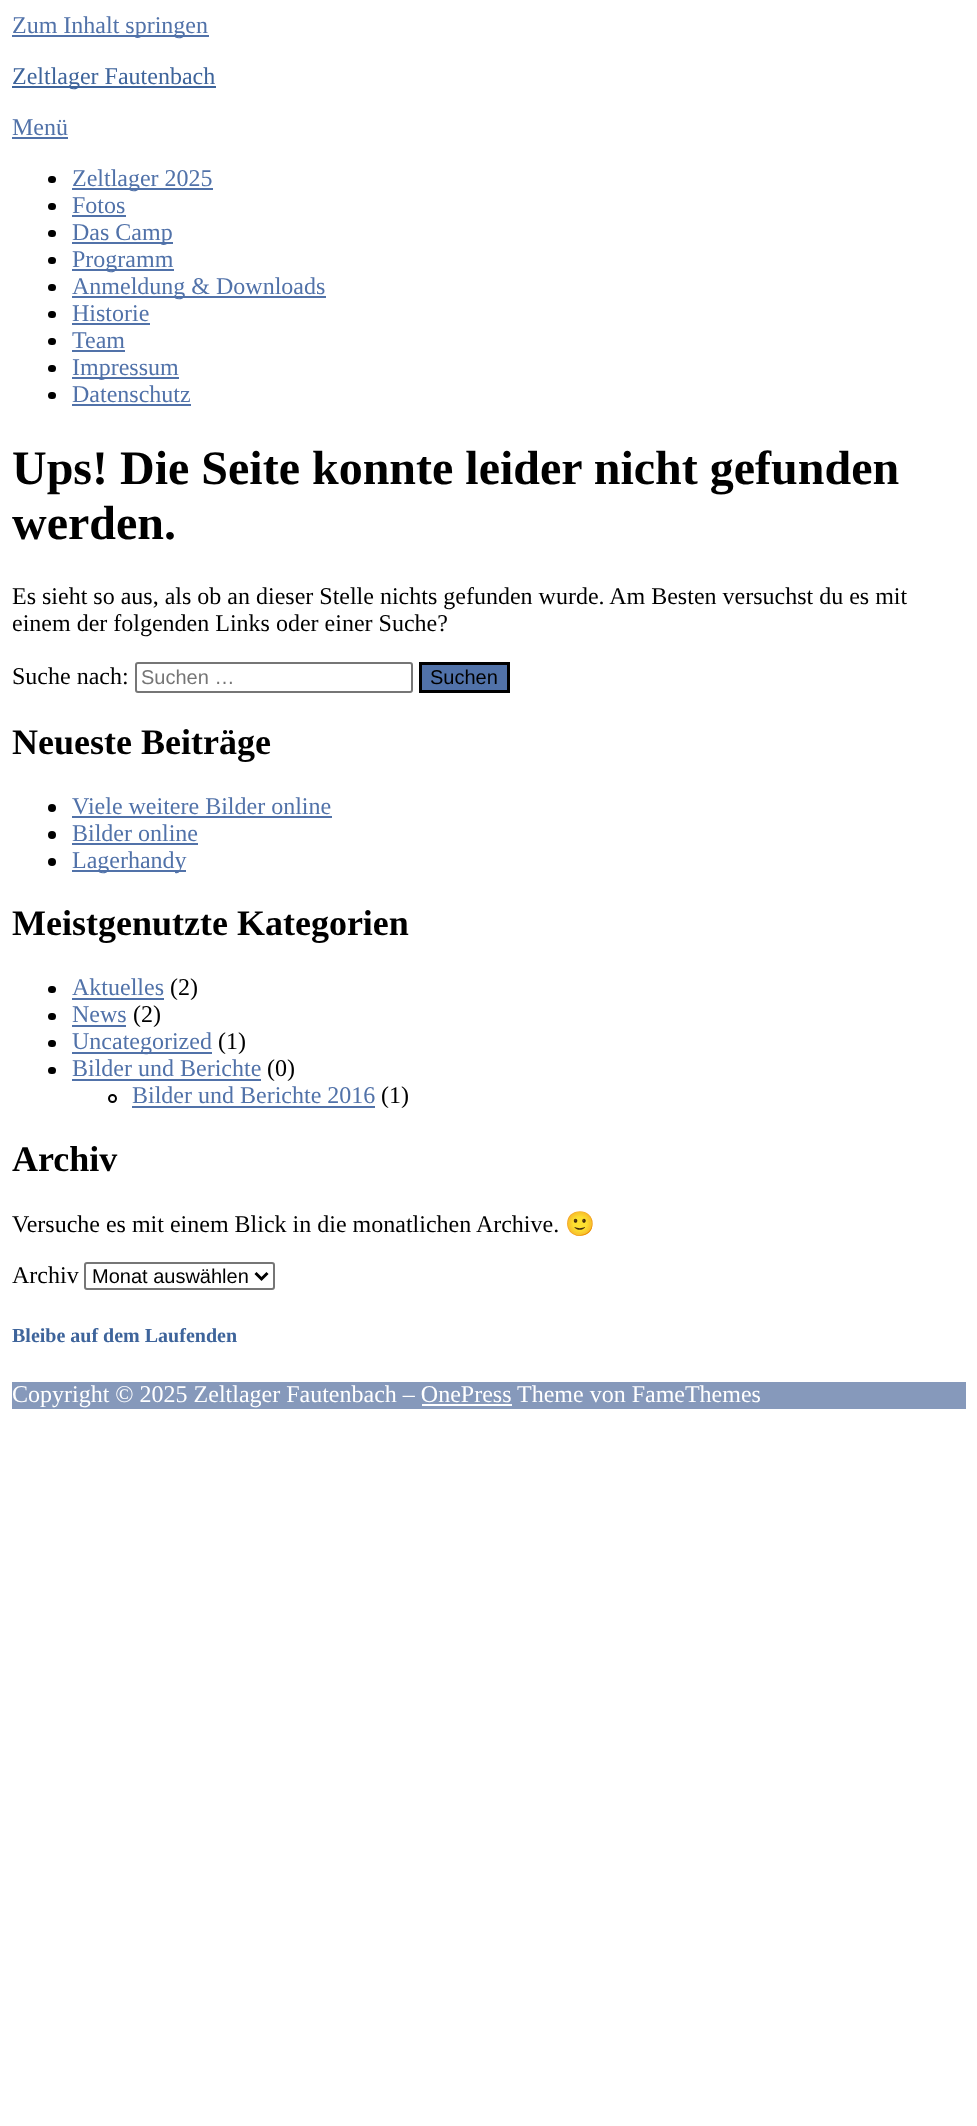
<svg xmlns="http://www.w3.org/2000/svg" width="977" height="2126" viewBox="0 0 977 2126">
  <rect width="100%" height="100%" fill="#fff"/>
  <path d="M12 35h197v2H12z" fill="#5172a9"/>
  <path d="M12 86h204v2H12z" fill="#3e649b"/>
  <path d="M12 137h56v2H12z" fill="#5172a9"/>
  <rect x="48" y="176" width="8" height="7" rx="3.5" fill="#000"/>
  <path d="M72 188h141v2H72z" fill="#5172a9"/>
  <rect x="48" y="203" width="8" height="7" rx="3.5" fill="#000"/>
  <path d="M72 215h54v2H72z" fill="#5172a9"/>
  <rect x="48" y="230" width="8" height="7" rx="3.5" fill="#000"/>
  <path d="M72 242h101v2H72z" fill="#5172a9"/>
  <rect x="48" y="257" width="8" height="7" rx="3.5" fill="#000"/>
  <path d="M72 269h102v2H72z" fill="#5172a9"/>
  <rect x="48" y="284" width="8" height="7" rx="3.5" fill="#000"/>
  <path d="M72 296h254v2H72z" fill="#5172a9"/>
  <rect x="48" y="311" width="8" height="7" rx="3.5" fill="#000"/>
  <path d="M72 323h78v2H72z" fill="#5172a9"/>
  <rect x="48" y="338" width="8" height="7" rx="3.5" fill="#000"/>
  <path d="M72 350h53v2H72z" fill="#5172a9"/>
  <rect x="48" y="365" width="8" height="7" rx="3.5" fill="#000"/>
  <path d="M72 377h107v2H72z" fill="#5172a9"/>
  <rect x="48" y="392" width="8" height="7" rx="3.5" fill="#000"/>
  <path d="M72 404h119v2H72z" fill="#5172a9"/>
  <rect x="136" y="663" width="276" height="29" rx="2" fill="none" stroke="#767676" stroke-width="2"/>
  <path d="M420.5 663.5h88v28H420.5z" fill="#5172a9" stroke="#000" stroke-width="3"/>
  <circle cx="52" cy="808" r="4" fill="#000"/>
  <path d="M72 816h260v2H72z" fill="#5172a9"/>
  <circle cx="52" cy="835" r="4" fill="#000"/>
  <path d="M72 843h126v2H72z" fill="#5172a9"/>
  <circle cx="52" cy="862" r="4" fill="#000"/>
  <path d="M72 870h114v2H72z" fill="#5172a9"/>
  <rect x="48" y="986" width="8" height="7" rx="3.5" fill="#000"/>
  <path d="M72 998h92v2H72z" fill="#5172a9"/>
  <rect x="48" y="1013" width="8" height="7" rx="3.5" fill="#000"/>
  <path d="M72 1025h54v2H72z" fill="#5172a9"/>
  <rect x="48" y="1040" width="8" height="7" rx="3.5" fill="#000"/>
  <path d="M72 1052h140v2H72z" fill="#5172a9"/>
  <rect x="48" y="1067" width="8" height="7" rx="3.5" fill="#000"/>
  <path d="M72 1079h189v2H72z" fill="#5172a9"/>
  <circle cx="112.5" cy="1098.5" r="3.5" fill="none" stroke="#000" stroke-width="2"/>
  <path d="M132 1106h243v2H132z" fill="#5172a9"/>
  <rect x="85" y="1263" width="189" height="26" rx="2" fill="none" stroke="#767676" stroke-width="2"/>
  <path d="M255.5 1273L261.5 1279L267.5 1273" fill="none" stroke="#000" stroke-width="3"/>
  <path d="M12 1382h954v27H12z" fill="#8699bb"/>
  <path d="M422 1404h90v2H422z" fill="#fff"/>
  <text x="12" y="33" font-family="Liberation Serif" font-size="24" fill="#5172a9">Zum Inhalt springen</text>
  <text x="12" y="84" font-family="Liberation Serif" font-size="24" fill="#3e649b">Zeltlager Fautenbach</text>
  <g font-family="Liberation Serif" font-size="24" fill="#5172a9">
    <text x="12" y="135">Menü</text>
    <text x="72" y="186">Zeltlager 2025</text>
    <text x="72" y="213">Fotos</text>
    <text x="72" y="240">Das Camp</text>
    <text x="72" y="267">Programm</text>
    <text x="72" y="294">Anmeldung &amp; Downloads</text>
    <text x="72" y="321">Historie</text>
    <text x="72" y="348">Team</text>
    <text x="72" y="375">Impressum</text>
    <text x="72" y="402">Datenschutz</text>
  </g>
  <g font-family="Liberation Serif" font-size="48" font-weight="bold" fill="#000">
    <text x="12" y="484">Ups! Die Seite konnte leider nicht gefunden</text>
    <text x="12" y="539">werden.</text>
  </g>
  <g font-family="Liberation Serif" font-size="24" fill="#000">
    <text x="12" y="604">Es sieht so aus, als ob an dieser Stelle nichts gefunden wurde. Am Besten versuchst du es mit</text>
    <text x="12" y="631">einem der folgenden Links oder einer Suche?</text>
    <text x="12" y="684">Suche nach:</text>
  </g>
  <text x="141" y="684" font-family="Liberation Sans" font-size="20" fill="#757575">Suchen …</text>
  <text x="430" y="684" font-family="Liberation Sans" font-size="20" fill="#000">Suchen</text>
  <text x="12" y="754" font-family="Liberation Serif" font-size="36" font-weight="bold" fill="#000">Neueste Beiträge</text>
  <g font-family="Liberation Serif" font-size="24" fill="#5172a9">
    <text x="72" y="814">Viele weitere Bilder online</text>
    <text x="72" y="841">Bilder online</text>
    <text x="72" y="868">Lagerhandy</text>
  </g>
  <text x="12" y="935" font-family="Liberation Serif" font-size="36" font-weight="bold" fill="#000">Meistgenutzte Kategorien</text>
  <text x="72" y="995" font-family="Liberation Serif" font-size="24" fill="#5172a9">Aktuelles</text>
  <text x="170" y="995" font-family="Liberation Serif" font-size="24" fill="#000">(2)</text>
  <text x="72" y="1022" font-family="Liberation Serif" font-size="24" fill="#5172a9">News</text>
  <text x="133" y="1022" font-family="Liberation Serif" font-size="24" fill="#000">(2)</text>
  <text x="72" y="1049" font-family="Liberation Serif" font-size="24" fill="#5172a9">Uncategorized</text>
  <text x="218" y="1049" font-family="Liberation Serif" font-size="24" fill="#000">(1)</text>
  <text x="72" y="1076" font-family="Liberation Serif" font-size="24" fill="#5172a9">Bilder und Berichte</text>
  <text x="267" y="1076" font-family="Liberation Serif" font-size="24" fill="#000">(0)</text>
  <text x="132" y="1103" font-family="Liberation Serif" font-size="24" fill="#5172a9">Bilder und Berichte 2016</text>
  <text x="381" y="1103" font-family="Liberation Serif" font-size="24" fill="#000">(1)</text>
  <text x="12" y="1171" font-family="Liberation Serif" font-size="36" font-weight="bold" fill="#000">Archiv</text>
  <text x="12" y="1232" font-family="Liberation Serif" font-size="24" fill="#000">Versuche es mit einem Blick in die monatlichen Archive.</text>
  <text x="565" y="1232" font-family="Noto Color Emoji" font-size="24" fill="#000">🙂</text>
  <text x="12" y="1283" font-family="Liberation Serif" font-size="24" fill="#000">Archiv</text>
  <text x="92" y="1283" font-family="Liberation Sans" font-size="20" fill="#000">Monat auswählen</text>
  <text x="12" y="1342" font-family="Liberation Serif" font-size="20" font-weight="bold" fill="#3e649b">Bleibe auf dem Laufenden</text>
  <g font-family="Liberation Serif" font-size="24" fill="#fff">
    <text x="12" y="1402">Copyright © 2025 Zeltlager Fautenbach – OnePress</text>
    <text x="517" y="1402">Theme von FameThemes</text>
  </g>
</svg>
